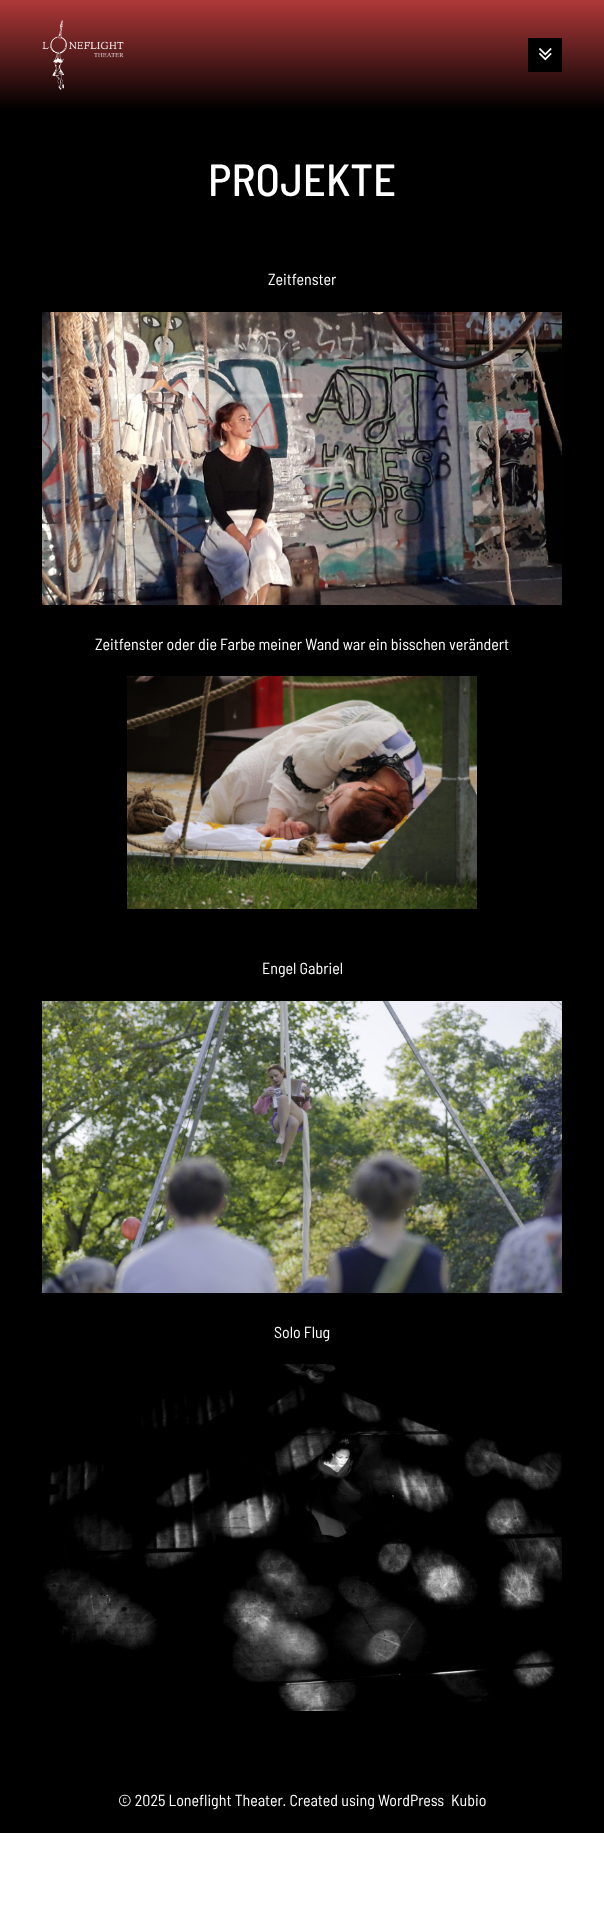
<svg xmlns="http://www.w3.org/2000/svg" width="604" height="1914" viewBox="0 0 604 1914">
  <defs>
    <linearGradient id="g1" gradientUnits="userSpaceOnUse" x1="302" y1="110" x2="302" y2="0"><stop offset="0" stop-color="#000"/><stop offset="0.98" stop-color="#ac3737"/></linearGradient>
  </defs>
  <rect width="100%" height="100%" fill="#fff"/>
  <path d="M0 0h604v110H0z" fill="url(#g1)"/>
  <image x="42" y="20" width="82" height="70" href="img/1.png"/>
  <path d="M528 38h34v34H528z" fill="#000"/>
  <image x="539" y="48" width="13" height="13" href="img/2.png"/>
  <path d="M0 110h604v1723H0z" fill="#000"/>
  <image x="42" y="312" width="520" height="293" href="img/3.png"/>
  <image x="127" y="676" width="350" height="233" href="img/4.png"/>
  <image x="42" y="1001" width="520" height="292" href="img/5.png"/>
  <image x="42" y="1364" width="520" height="347" href="img/6.png"/>
  <text x="208" y="196" font-family="Barlow Semi Condensed" font-size="45" font-weight="500" fill="#fff">PROJEKTE</text>
  <g font-family="Barlow Semi Condensed" font-size="16" fill="#fff">
    <text x="268" y="285">Zeitfenster</text>
    <text x="95" y="650">Zeitfenster oder die Farbe meiner Wand war ein bisschen verändert</text>
    <text x="262" y="974">Engel Gabriel</text>
    <text x="274" y="1338">Solo Flug</text>
    <text x="118" y="1806">© 2025 Loneflight Theater. Created using WordPress</text>
    <text x="451" y="1806">Kubio</text>
  </g>
</svg>
